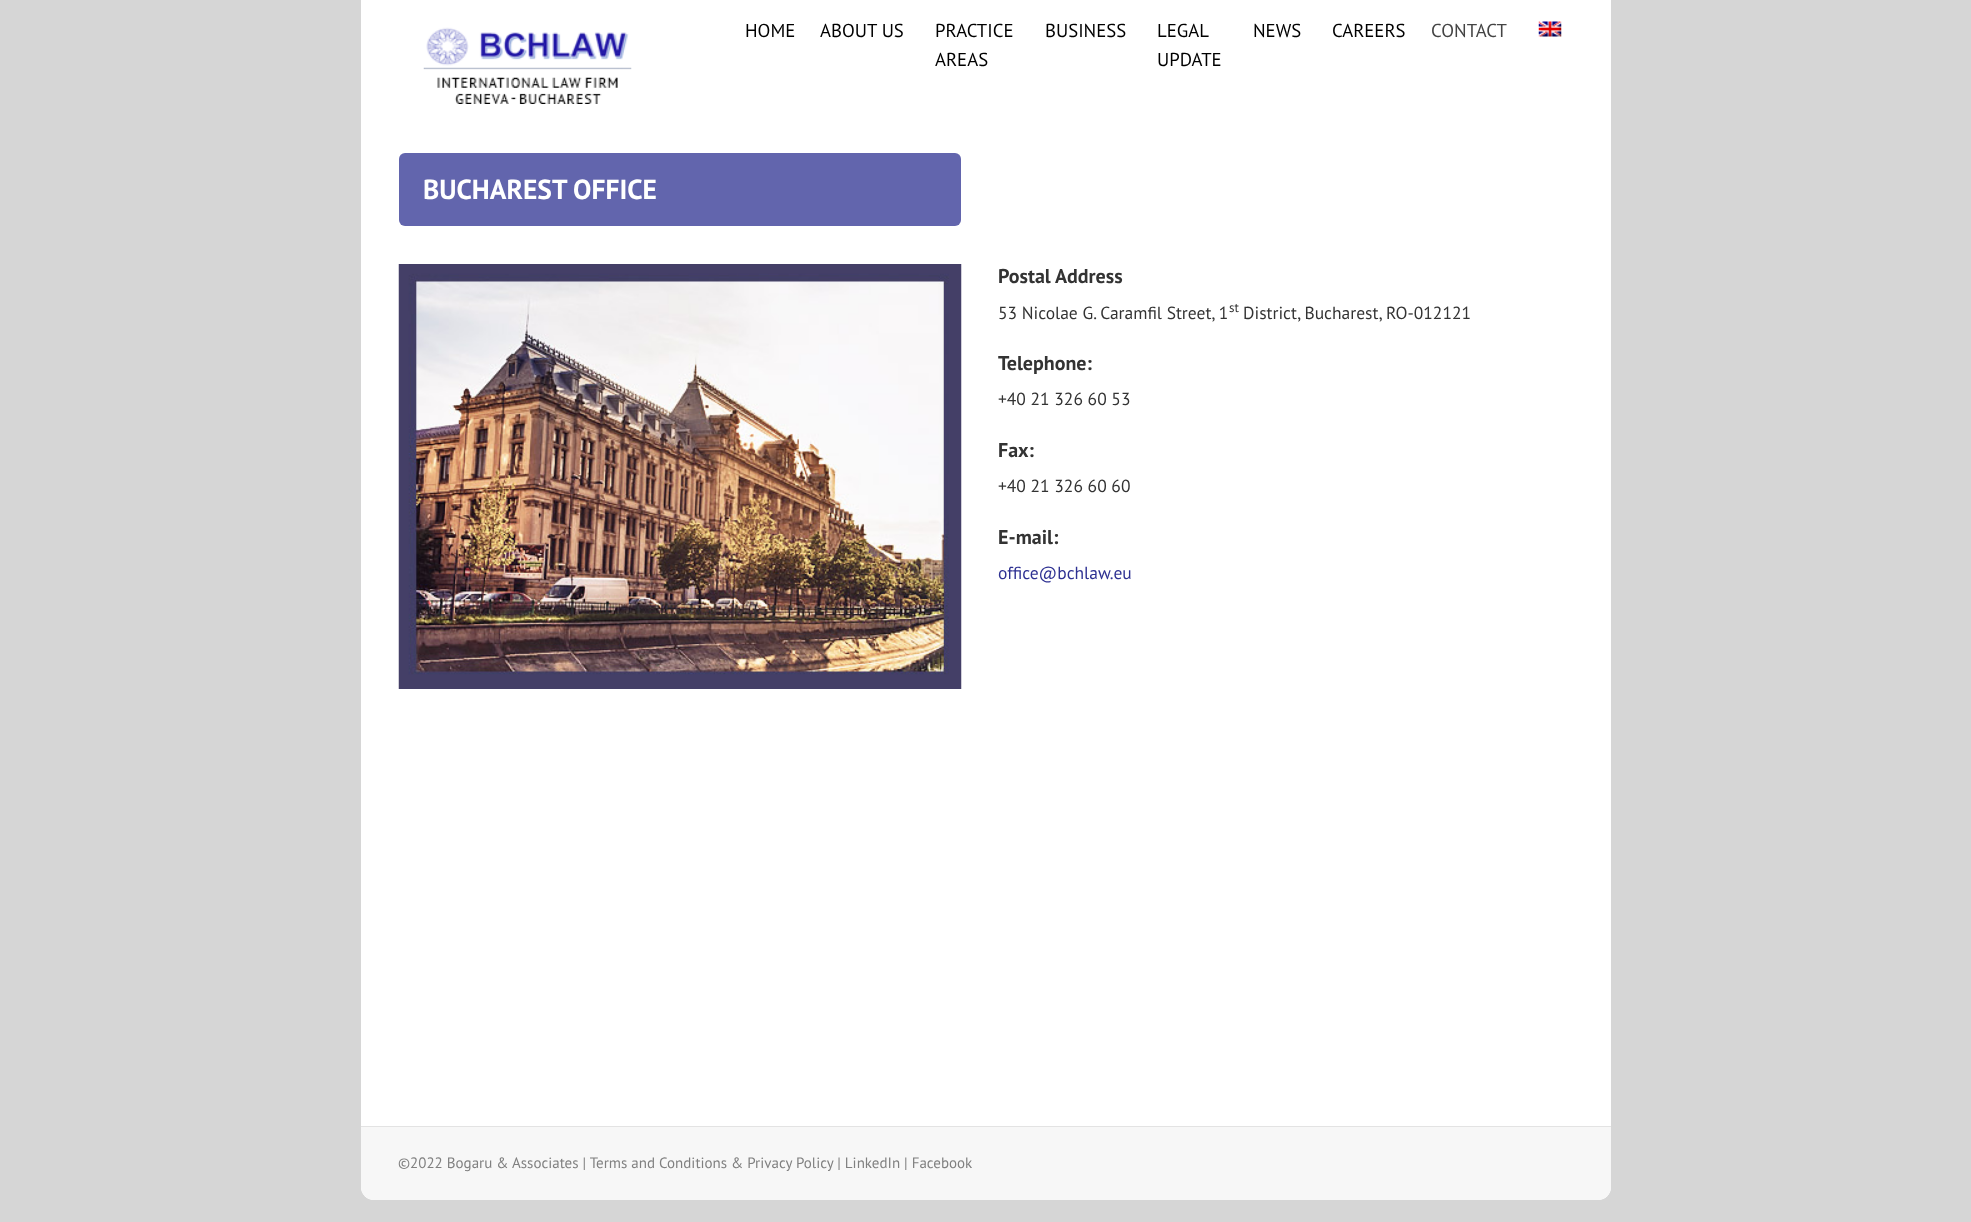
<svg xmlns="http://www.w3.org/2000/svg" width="1971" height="1222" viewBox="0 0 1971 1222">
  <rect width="100%" height="100%" fill="#d6d6d6"/>
  <rect x="361" y="-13" width="1250" height="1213" rx="13" fill="#fff"/>
  <image x="423" y="27" width="209" height="77" href="img/1.png"/>
  <image x="1538" y="21" width="24" height="16" href="img/2.png"/>
  <rect x="399" y="153" width="562" height="73" rx="6" fill="#6265ad"/>
  <image x="398" y="264" width="564" height="425" href="img/3.png"/>
  <path d="M361 1126H1611V1187C1611 1194 1605 1200 1598 1200H374C367 1200 361 1194 361 1187Z" fill="#f7f7f7"/>
  <path d="M361 1126h1250v1H361z" fill="#e3e3e3"/>
  <g font-family="PT Sans" font-size="18.75" fill="#000">
    <text x="745" y="37">HOME</text>
    <text x="820" y="37">ABOUT US</text>
    <text x="935" y="37">PRACTICE</text>
    <text x="935" y="66">AREAS</text>
    <text x="1045" y="37">BUSINESS</text>
    <text x="1157" y="37">LEGAL</text>
    <text x="1157" y="66">UPDATE</text>
    <text x="1253" y="37">NEWS</text>
    <text x="1332" y="37">CAREERS</text>
  </g>
  <text x="1431" y="37" font-family="PT Sans" font-size="18.75" fill="#444">CONTACT</text>
  <text x="423" y="199" font-family="PT Sans" font-size="27.5" font-weight="bold" fill="#fff">BUCHAREST OFFICE</text>
  <text x="998" y="283" font-family="PT Sans" font-size="20" font-weight="bold" fill="#333">Postal Address</text>
  <text x="998" y="319" font-family="PT Sans" font-size="17.5" fill="#333">53 Nicolae G. Caramfil Street, 1</text>
  <text x="1229" y="312" font-family="PT Sans" font-size="13" fill="#333">st</text>
  <text x="1243" y="319" font-family="PT Sans" font-size="17.5" fill="#333">District, Bucharest, RO-012121</text>
  <text x="998" y="370" font-family="PT Sans" font-size="20" font-weight="bold" fill="#333">Telephone:</text>
  <text x="998" y="405" font-family="PT Sans" font-size="17.5" fill="#333">+40 21 326 60 53</text>
  <text x="998" y="457" font-family="PT Sans" font-size="20" font-weight="bold" fill="#333">Fax:</text>
  <text x="998" y="492" font-family="PT Sans" font-size="17.5" fill="#333">+40 21 326 60 60</text>
  <text x="998" y="544" font-family="PT Sans" font-size="20" font-weight="bold" fill="#333">E-mail:</text>
  <text x="998" y="579" font-family="PT Sans" font-size="17.5" fill="#2e3192">office@bchlaw.eu</text>
  <text x="398" y="1168" font-family="PT Sans" font-size="15" fill="#808080">©2022 Bogaru &amp; Associates | Terms and Conditions &amp; Privacy Policy | LinkedIn | Facebook</text>
</svg>
